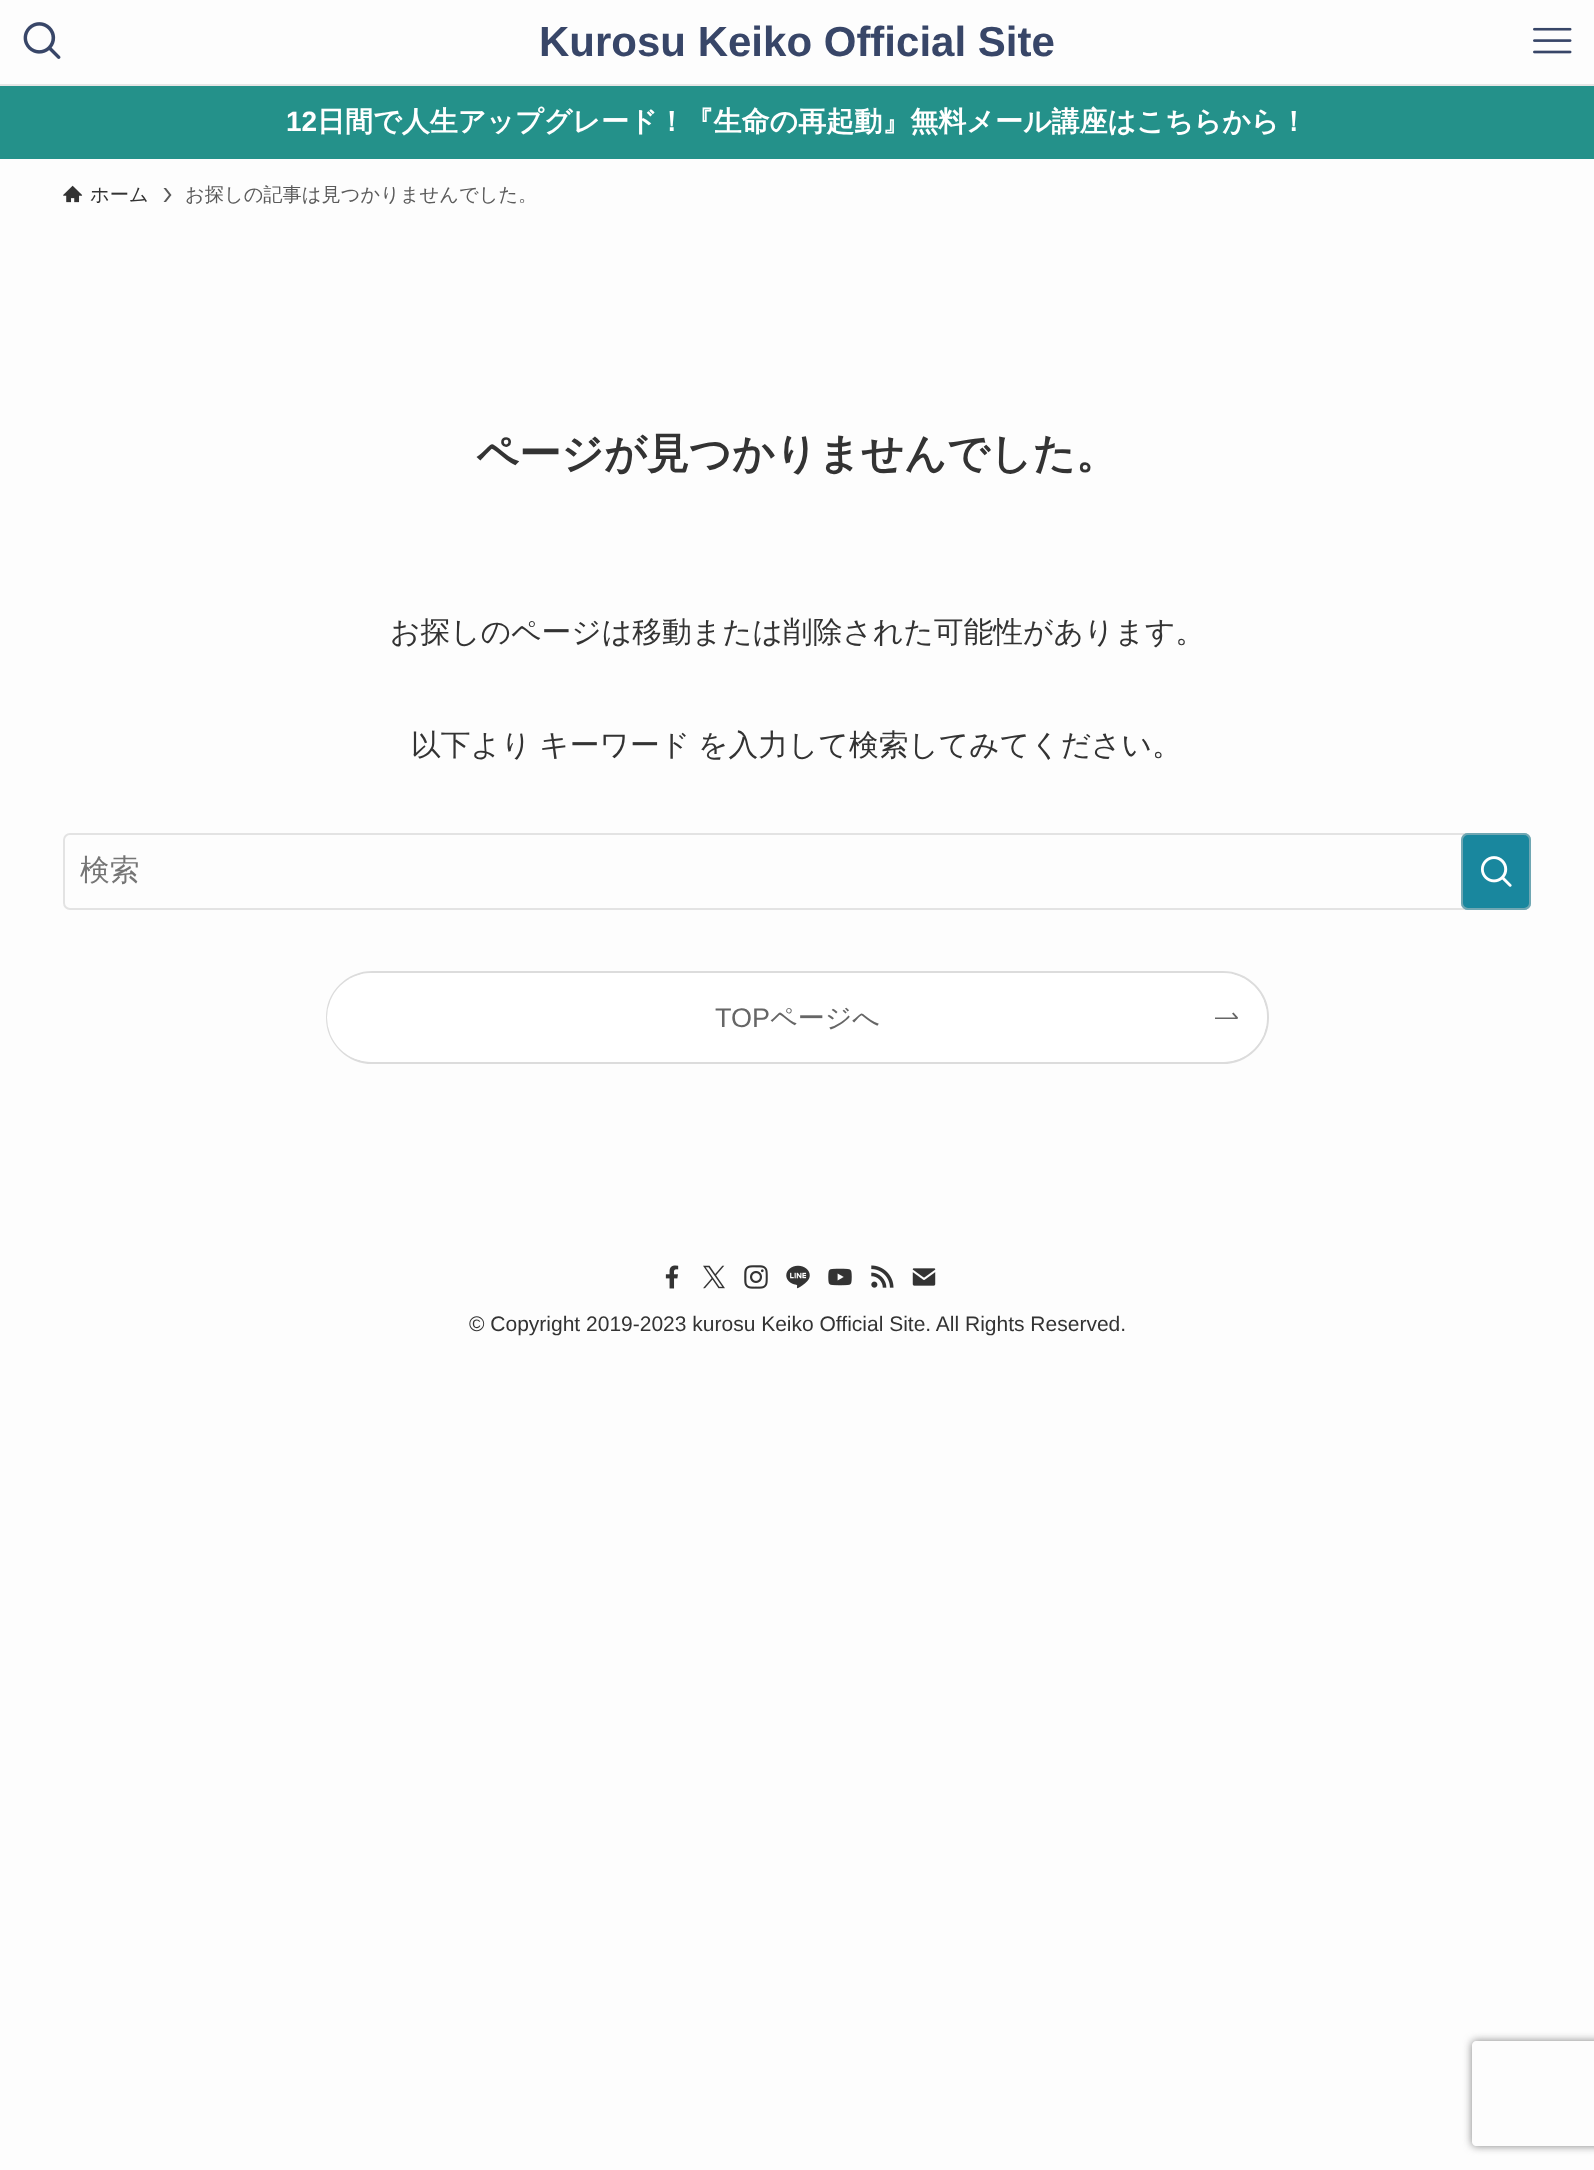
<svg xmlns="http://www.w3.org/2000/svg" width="1594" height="2170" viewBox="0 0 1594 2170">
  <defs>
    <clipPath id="clip1"><path d="M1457 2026H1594V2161H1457ZM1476 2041H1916C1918 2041 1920 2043 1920 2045V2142C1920 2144 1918 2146 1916 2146H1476C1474 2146 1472 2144 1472 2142V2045C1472 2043 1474 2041 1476 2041Z" clip-rule="evenodd"/></clipPath>
  </defs>
  <rect width="100%" height="100%" fill="#fdfdfd"/>
  <path d="M0 84h1594v2H0z" fill="#e6e6e6"/>
  <image x="23" y="22" width="38" height="37" href="img/1.png"/>
  <image x="1533" y="27" width="39" height="27" href="img/2.png"/>
  <path d="M0 86h1594v73H0z" fill="#24918a"/>
  <image x="63" y="185" width="20" height="18" href="img/3.png"/>
  <path d="M166 188H163.5L169 195L163.5 202H166L171.5 195Z" fill="#5b5b5b"/>
  <rect x="64" y="834" width="1466" height="75" rx="6" fill="none" stroke="#e3e3e3" stroke-width="2"/>
  <rect x="1461" y="833" width="70" height="77" rx="7" fill="#19879e"/>
  <rect x="1462" y="834" width="68" height="75" rx="6" fill="none" stroke="#c7c7c780" stroke-width="2"/>
  <image x="1480" y="856" width="32" height="31" href="img/4.png"/>
  <rect x="327" y="972" width="941" height="91" rx="45.5" fill="none" stroke="#dcdcdc" stroke-width="2"/>
  <rect x="327" y="973" width="940" height="89" rx="44.5" fill="#fff"/>
  <path d="M1237.5 1019H1215V1017.5H1235.5L1232 1013.5L1233.5 1012.5L1238 1017.5Z" fill="#666"/>
  <image x="665" y="1265" width="14" height="24" href="img/5.png"/>
  <image x="703" y="1265" width="22" height="24" href="img/6.png"/>
  <image x="744" y="1265" width="24" height="24" href="img/7.png"/>
  <image x="786" y="1265" width="24" height="24" href="img/8.png"/>
  <image x="828" y="1268" width="24" height="18" href="img/9.png"/>
  <image x="871" y="1265" width="23" height="23" href="img/10.png"/>
  <image x="912" y="1268" width="24" height="18" href="img/11.png"/>
  <g clip-path="url(#clip1)">
    <rect x="1472" y="2041" width="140" height="105" rx="4" fill="#808080" filter="blur(4.5px)"/>
  </g>
  <text x="539" y="56" font-family="Liberation Sans" font-size="42" font-weight="bold" fill="#384668">Kurosu Keiko Official Site</text>
  <text x="286" y="131" font-family="Liberation Sans" font-size="28" font-weight="bold" fill="#fff">12</text>
  <text x="317" y="131" font-family="WenQuanYi Zen Hei" font-size="28" font-weight="bold" fill="#fff">日間で人生アップグレード！『生命の再起動』無料メール講座はこちらから！</text>
  <text x="90" y="201" font-family="WenQuanYi Zen Hei" font-size="19.25" font-weight="500" fill="#333">ホーム</text>
  <text x="185" y="201" font-family="WenQuanYi Zen Hei" font-size="19.25" font-weight="500" fill="#5b5b5b">お探しの記事は見つかりませんでした。</text>
  <text x="476" y="468" font-family="WenQuanYi Zen Hei" font-size="42" font-weight="bold" fill="#333">ページが見つかりませんでした。</text>
  <g font-family="WenQuanYi Zen Hei" font-size="29.75" font-weight="500" fill="#333">
    <text x="390" y="642">お探しのページは移動または削除された可能性があります。</text>
    <text x="411" y="755" word-spacing="-1">以下より キーワード を入力して検索してみてください。</text>
  </g>
  <text x="80" y="880" font-family="WenQuanYi Zen Hei" font-size="29.75" font-weight="500" fill="#757575">検索</text>
  <text x="715" y="1027" font-family="Liberation Sans" font-size="27" fill="#666">TOP</text>
  <text x="770" y="1027" font-family="WenQuanYi Zen Hei" font-size="27" font-weight="500" fill="#666">ページへ</text>
  <text x="469" y="1331" font-family="Liberation Sans" font-size="21" fill="#333">© Copyright 2019-2023 kurosu Keiko Official Site. All Rights Reserved.</text>
</svg>
